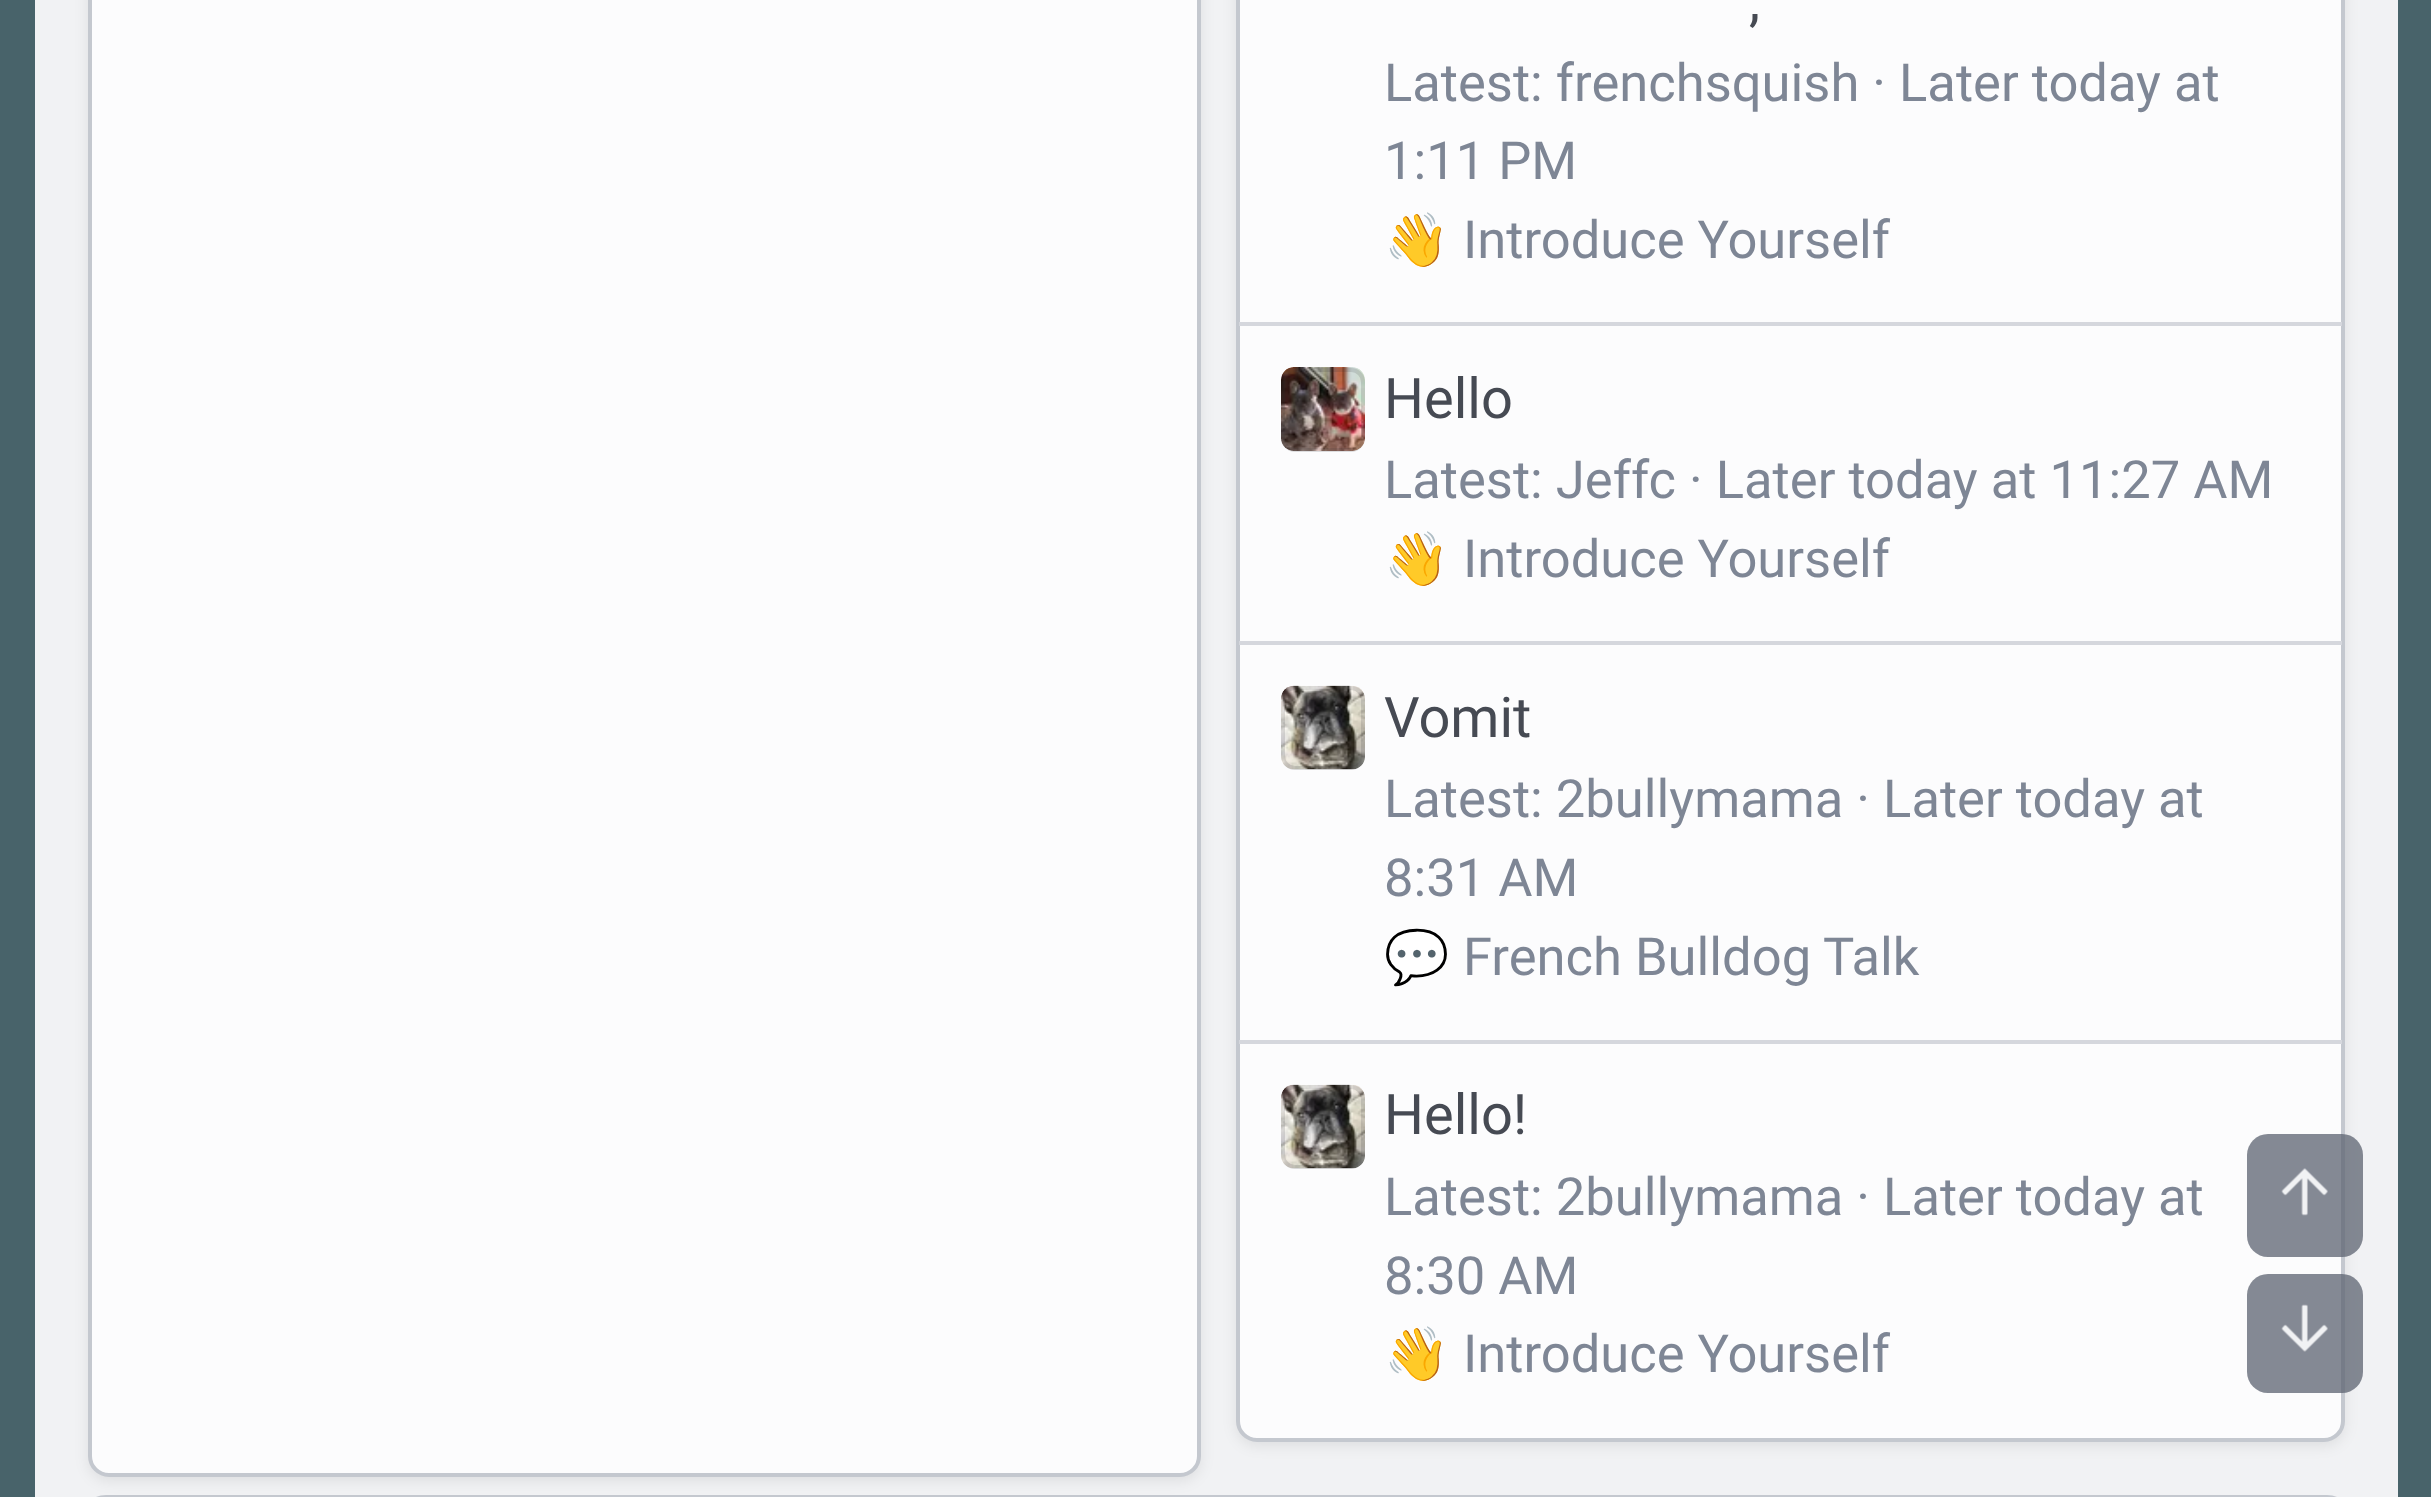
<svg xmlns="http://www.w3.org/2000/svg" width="2431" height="1497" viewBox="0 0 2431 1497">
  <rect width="100%" height="100%" fill="#48636a"/>
  <path d="M35 0h2363v1497H35z" fill="#f1f2f4"/>
  <rect x="88" y="-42" width="1113" height="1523" rx="21" fill="#00000014" filter="blur(7px)"/>
  <rect x="90" y="-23" width="1109" height="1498" rx="19" fill="#fcfcfd" stroke="#c4c8cf" stroke-width="4"/>
  <rect x="1236" y="-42" width="1109" height="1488" rx="21" fill="#00000014" filter="blur(7px)"/>
  <rect x="1238" y="-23" width="1105" height="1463" rx="19" fill="#fcfcfd" stroke="#c4c8cf" stroke-width="4"/>
  <path d="M1239 322h1103v4H1239z" fill="#d5d7dd"/>
  <path d="M1239 641h1103v4H1239z" fill="#d5d7dd"/>
  <image x="1281" y="367" width="84" height="84" href="img/1.png"/>
  <rect x="1283" y="370" width="80" height="80" rx="12" fill="none" stroke="#2f323726" stroke-width="4"/>
  <path d="M1239 1040h1103v4H1239z" fill="#d5d7dd"/>
  <image x="1281" y="685" width="84" height="85" href="img/2.png"/>
  <rect x="1283" y="688" width="80" height="80" rx="12" fill="none" stroke="#2f323726" stroke-width="4"/>
  <image x="1281" y="1084" width="84" height="85" href="img/3.png"/>
  <rect x="1283" y="1087" width="80" height="80" rx="12" fill="none" stroke="#2f323726" stroke-width="4"/>
  <rect x="90" y="1497" width="2253" height="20" rx="16" fill="none" stroke="#c4c8cf" stroke-width="4"/>
  <rect x="2247" y="1134" width="116" height="123" rx="21" fill="#5c6370bf"/>
  <image x="2281" y="1168" width="47" height="48" href="img/4.png"/>
  <rect x="2247" y="1274" width="116" height="119" rx="21" fill="#5c6370bf"/>
  <image x="2281" y="1304" width="47" height="48" href="img/5.png"/>
  <text x="1749" y="20" font-family="Roboto" font-size="56" fill="#464a53">,</text>
  <g font-family="Roboto" font-size="52.5" fill="#7e8695">
    <text x="1384" y="101">Latest: frenchsquish · Later today at</text>
    <text x="1384" y="179">1:11 PM</text>
  </g>
  <text x="1384" y="258" font-family="Noto Color Emoji" font-size="52.5" fill="#7e8695">👋</text>
  <text x="1463" y="258" font-family="Roboto" font-size="52.5" fill="#7e8695">Introduce Yourself</text>
  <text x="1384" y="418" font-family="Roboto" font-size="56" fill="#464a53">Hello</text>
  <text x="1384" y="498" font-family="Roboto" font-size="52.5" fill="#7e8695">Latest: Jeffc · Later today at 11:27 AM</text>
  <text x="1384" y="577" font-family="Noto Color Emoji" font-size="52.5" fill="#7e8695">👋</text>
  <text x="1463" y="577" font-family="Roboto" font-size="52.5" fill="#7e8695">Introduce Yourself</text>
  <text x="1384" y="737" font-family="Roboto" font-size="56" fill="#464a53">Vomit</text>
  <g font-family="Roboto" font-size="52.5" fill="#7e8695">
    <text x="1384" y="817">Latest: 2bullymama · Later today at</text>
    <text x="1384" y="896">8:31 AM</text>
  </g>
  <text x="1384" y="975" font-family="Noto Color Emoji" font-size="52.5" fill="#7e8695">💬</text>
  <text x="1463" y="975" font-family="Roboto" font-size="52.5" fill="#7e8695">French Bulldog Talk</text>
  <text x="1384" y="1134" font-family="Roboto" font-size="56" fill="#464a53">Hello!</text>
  <g font-family="Roboto" font-size="52.5" fill="#7e8695">
    <text x="1384" y="1215">Latest: 2bullymama · Later today at</text>
    <text x="1384" y="1294">8:30 AM</text>
  </g>
  <text x="1384" y="1372" font-family="Noto Color Emoji" font-size="52.5" fill="#7e8695">👋</text>
  <text x="1463" y="1372" font-family="Roboto" font-size="52.5" fill="#7e8695">Introduce Yourself</text>
</svg>
